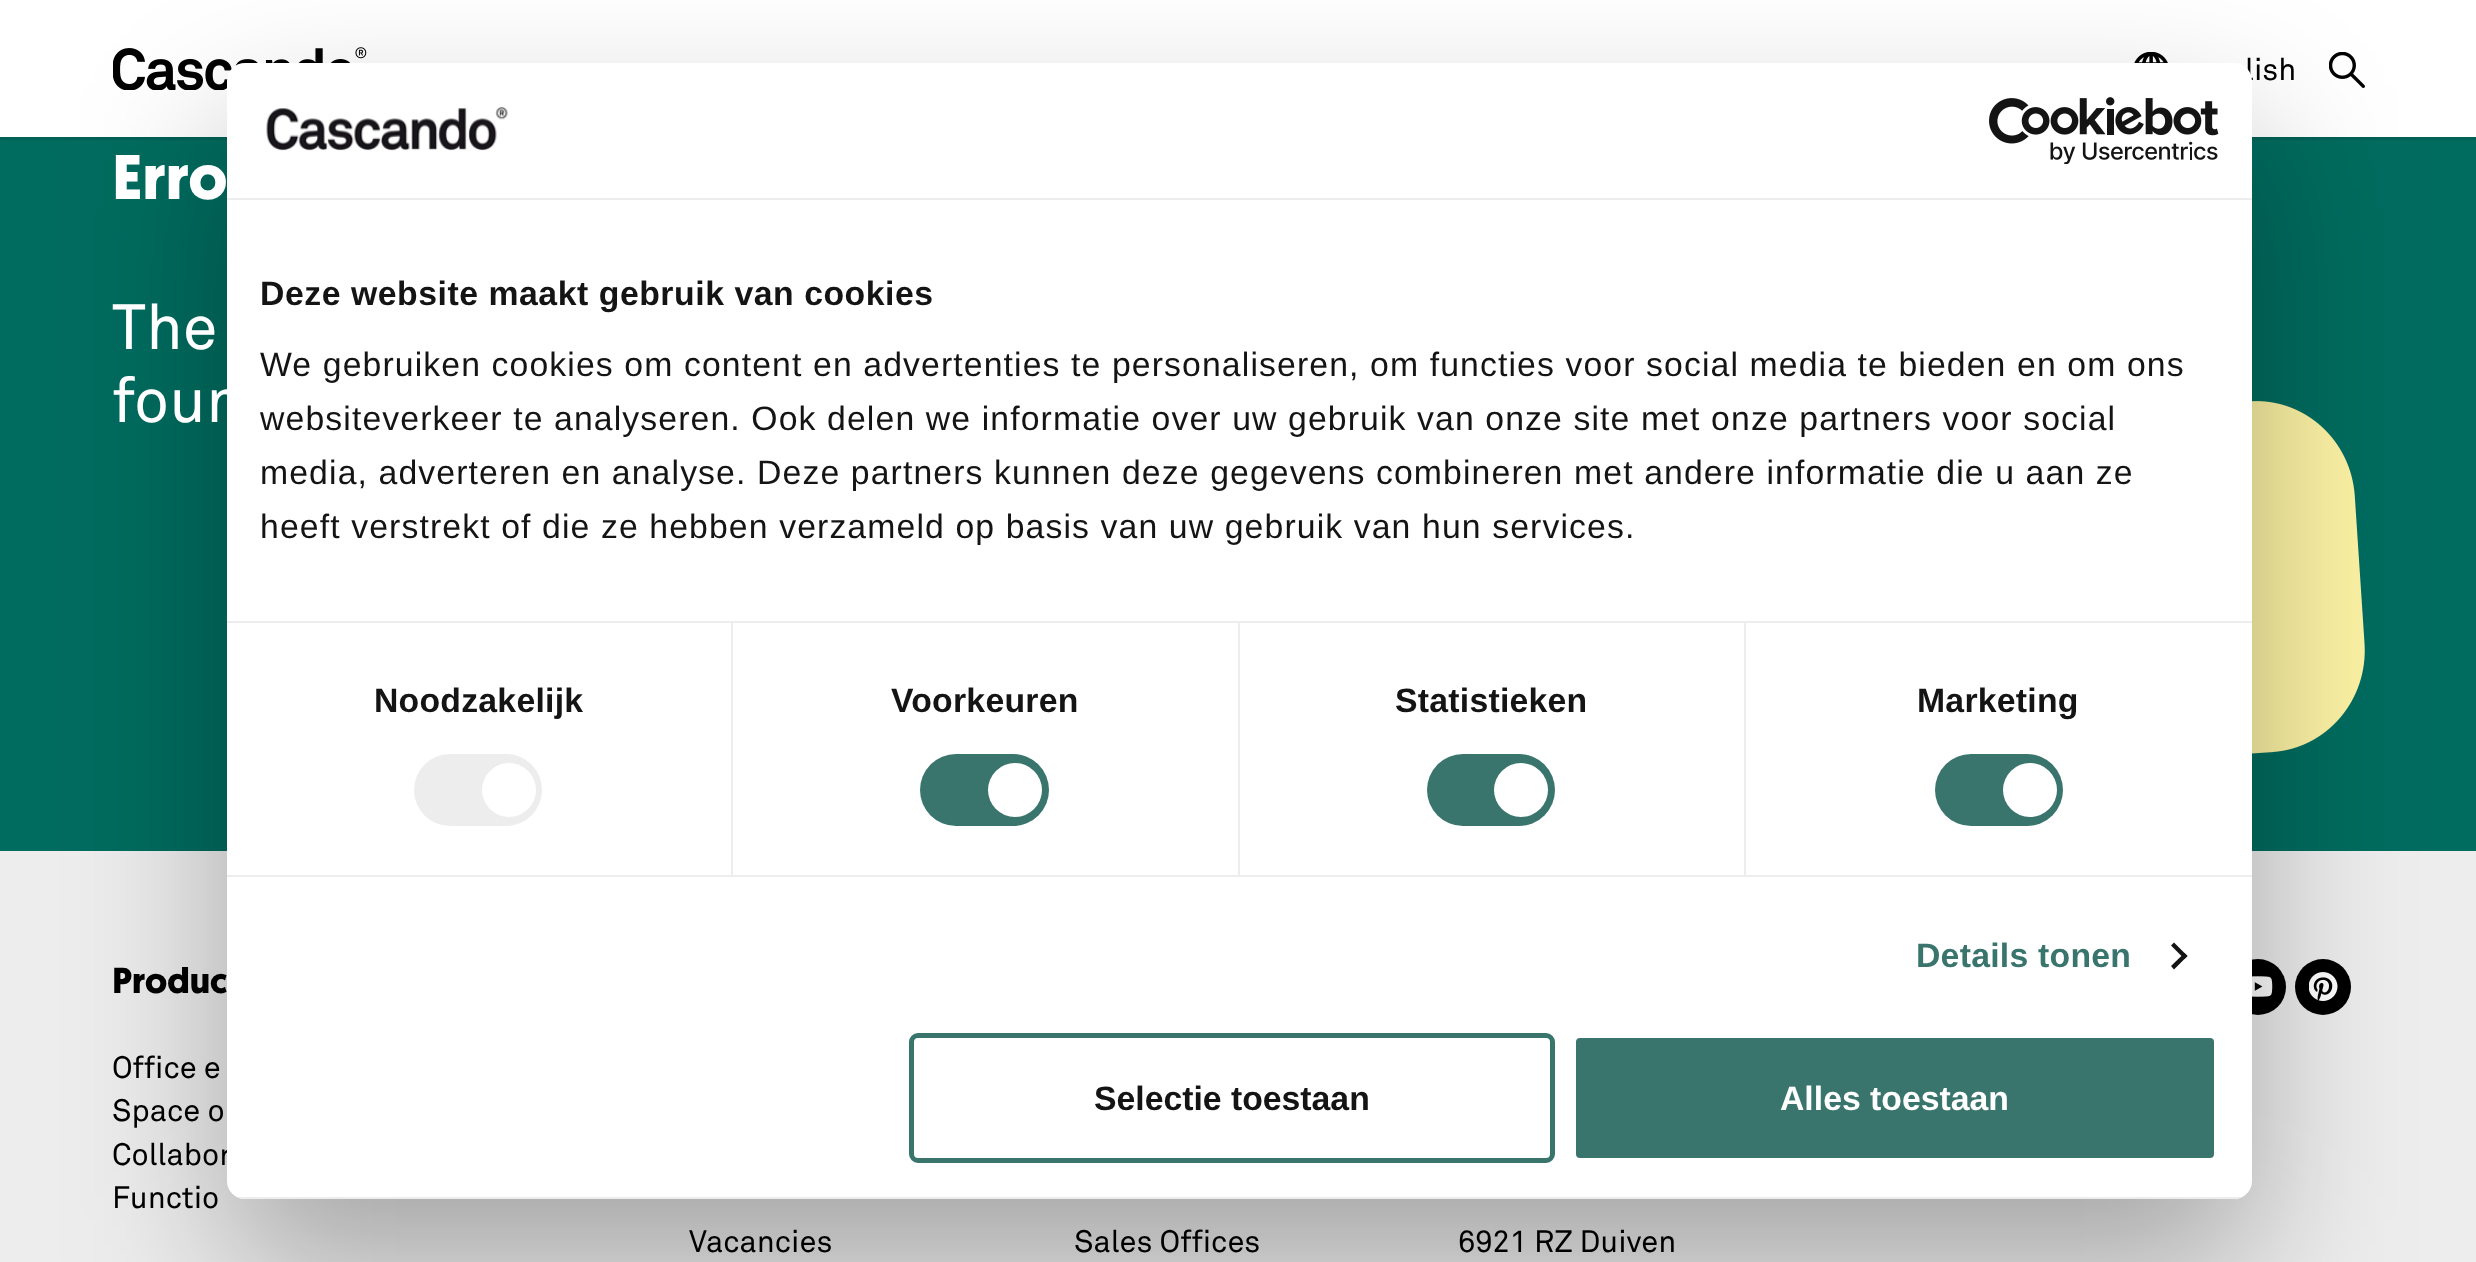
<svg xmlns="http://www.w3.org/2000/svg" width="2476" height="1262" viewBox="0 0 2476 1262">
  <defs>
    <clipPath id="clip1"><path d="M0 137h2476v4H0z"/></clipPath>
    <clipPath id="clip2"><rect x="227" y="63" width="2025" height="1136" rx="18"/></clipPath>
  </defs>
  <rect width="100%" height="100%" fill="#006c5f"/>
  <path d="M0 0h2476v137H0z" fill="#fff"/>
  <image x="113" y="47" width="254" height="43" href="img/1.png"/>
  <image x="2134" y="52" width="34" height="11" href="img/2.png"/>
  <image x="2329" y="52" width="36" height="36" href="img/3.png"/>
  <g clip-path="url(#clip1)">
    <path d="M0 2h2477v138H0z" fill="#0000001a" filter="blur(1px)"/>
  </g>
  <image x="2252" y="401" width="113" height="353" href="img/4.png"/>
  <path d="M0 851h2476v411H0z" fill="#ededed"/>
  <circle cx="2258" cy="987" r="28" fill="#000"/>
  <image x="2252" y="976" width="21" height="21" href="img/5.png"/>
  <circle cx="2323" cy="987" r="28" fill="#000"/>
  <image x="2309" y="972" width="29" height="29" href="img/6.png"/>
  <rect x="227" y="135" width="2025" height="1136" rx="18" fill="#0000004d" filter="blur(76.5px)"/>
  <text x="2245" y="80" font-family="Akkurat" font-size="30.75" fill="#000">lish</text>
  <text x="112" y="199" font-family="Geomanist" font-size="63" font-weight="bold" fill="#fff">Erro</text>
  <g font-family="Akkurat" font-size="63" fill="#fff">
    <text x="112" y="349">The</text>
    <text x="112" y="422">foun</text>
  </g>
  <text x="112" y="993" font-family="Geomanist" font-size="36" font-weight="bold" fill="#000">Produc</text>
  <g font-family="Akkurat" font-size="30.75" fill="#000">
    <text x="112" y="1078">Office e</text>
    <text x="112" y="1121">Space o</text>
    <text x="112" y="1165">Collabor</text>
    <text x="112" y="1208">Functio</text>
    <text x="689" y="1252">Vacancies</text>
    <text x="1074" y="1252">Sales Offices</text>
    <text x="1458" y="1252">6921 RZ Duiven</text>
  </g>
  <rect x="227" y="63" width="2025" height="1136" rx="18" fill="#fff"/>
  <path d="M227 198h2025v2H227z" fill="#ededed"/>
  <image x="266" y="107" width="242" height="44" href="img/7.png"/>
  <image x="1989" y="97" width="230" height="67" href="img/8.png"/>
  <path d="M227 621h2025v2H227z" fill="#ededed"/>
  <text x="260" y="305" font-family="Liberation Sans" font-size="33.75" font-weight="bold" letter-spacing="0.55" fill="#141414">Deze website maakt gebruik van cookies</text>
  <g font-family="Liberation Sans" font-size="33.75" letter-spacing="1.12" fill="#141414">
    <text x="260" y="376">We gebruiken cookies om content en advertenties te personaliseren, om functies voor social media te bieden en om ons</text>
    <text x="260" y="430">websiteverkeer te analyseren. Ook delen we informatie over uw gebruik van onze site met onze partners voor social</text>
    <text x="260" y="484">media, adverteren en analyse. Deze partners kunnen deze gegevens combineren met andere informatie die u aan ze</text>
    <text x="260" y="538">heeft verstrekt of die ze hebben verzameld op basis van uw gebruik van hun services.</text>
  </g>
  <path d="M227 875h2025v2H227z" fill="#ededed"/>
  <path d="M731 623h2v252H731z" fill="#ededed"/>
  <text x="374" y="712" font-family="Liberation Sans" font-size="33.75" font-weight="bold" letter-spacing="0.25" fill="#141414">Noodzakelijk</text>
  <rect x="414" y="754" width="128" height="72" rx="36" fill="#ededed"/>
  <circle cx="509" cy="790" r="27" fill="#fff"/>
  <path d="M1238 623h2v252H1238z" fill="#ededed"/>
  <text x="891" y="712" font-family="Liberation Sans" font-size="33.75" font-weight="bold" letter-spacing="0.25" fill="#141414">Voorkeuren</text>
  <rect x="920" y="754" width="129" height="72" rx="36" fill="#39756c"/>
  <circle cx="1015" cy="790" r="27" fill="#fff"/>
  <path d="M1744 623h2v252H1744z" fill="#ededed"/>
  <text x="1395" y="712" font-family="Liberation Sans" font-size="33.75" font-weight="bold" letter-spacing="0.25" fill="#141414">Statistieken</text>
  <rect x="1427" y="754" width="128" height="72" rx="36" fill="#39756c"/>
  <circle cx="1521" cy="790" r="27" fill="#fff"/>
  <text x="1917" y="712" font-family="Liberation Sans" font-size="33.75" font-weight="bold" letter-spacing="0.25" fill="#141414">Marketing</text>
  <rect x="1935" y="754" width="128" height="72" rx="36" fill="#39756c"/>
  <circle cx="2030" cy="790" r="27" fill="#fff"/>
  <text x="1916" y="967" font-family="Liberation Sans" font-size="33.75" font-weight="bold" letter-spacing="0.25" fill="#39756c">Details tonen</text>
  <path d="M2174 942.5L2187.5 956L2184.5 959L2171 945.5Z" fill="#141414"/>
  <path d="M2184.5 953L2187.5 956L2174 969.5L2171 966Z" fill="#141414"/>
  <g clip-path="url(#clip2)">
    <path d="M237 1197h2005v2H237z" fill="#ededed"/>
  </g>
  <rect x="911.5" y="1035.5" width="641" height="125" rx="6.5" fill="none" stroke="#39756c" stroke-width="5"/>
  <text x="1094" y="1110" font-family="Liberation Sans" font-size="33.75" font-weight="bold" fill="#141414">Selectie toestaan</text>
  <rect x="1573.5" y="1035.5" width="643" height="125" rx="6.5" fill="#39756c" stroke="#fff" stroke-width="5"/>
  <text x="1780" y="1110" font-family="Liberation Sans" font-size="33.75" font-weight="bold" fill="#fff">Alles toestaan</text>
</svg>
